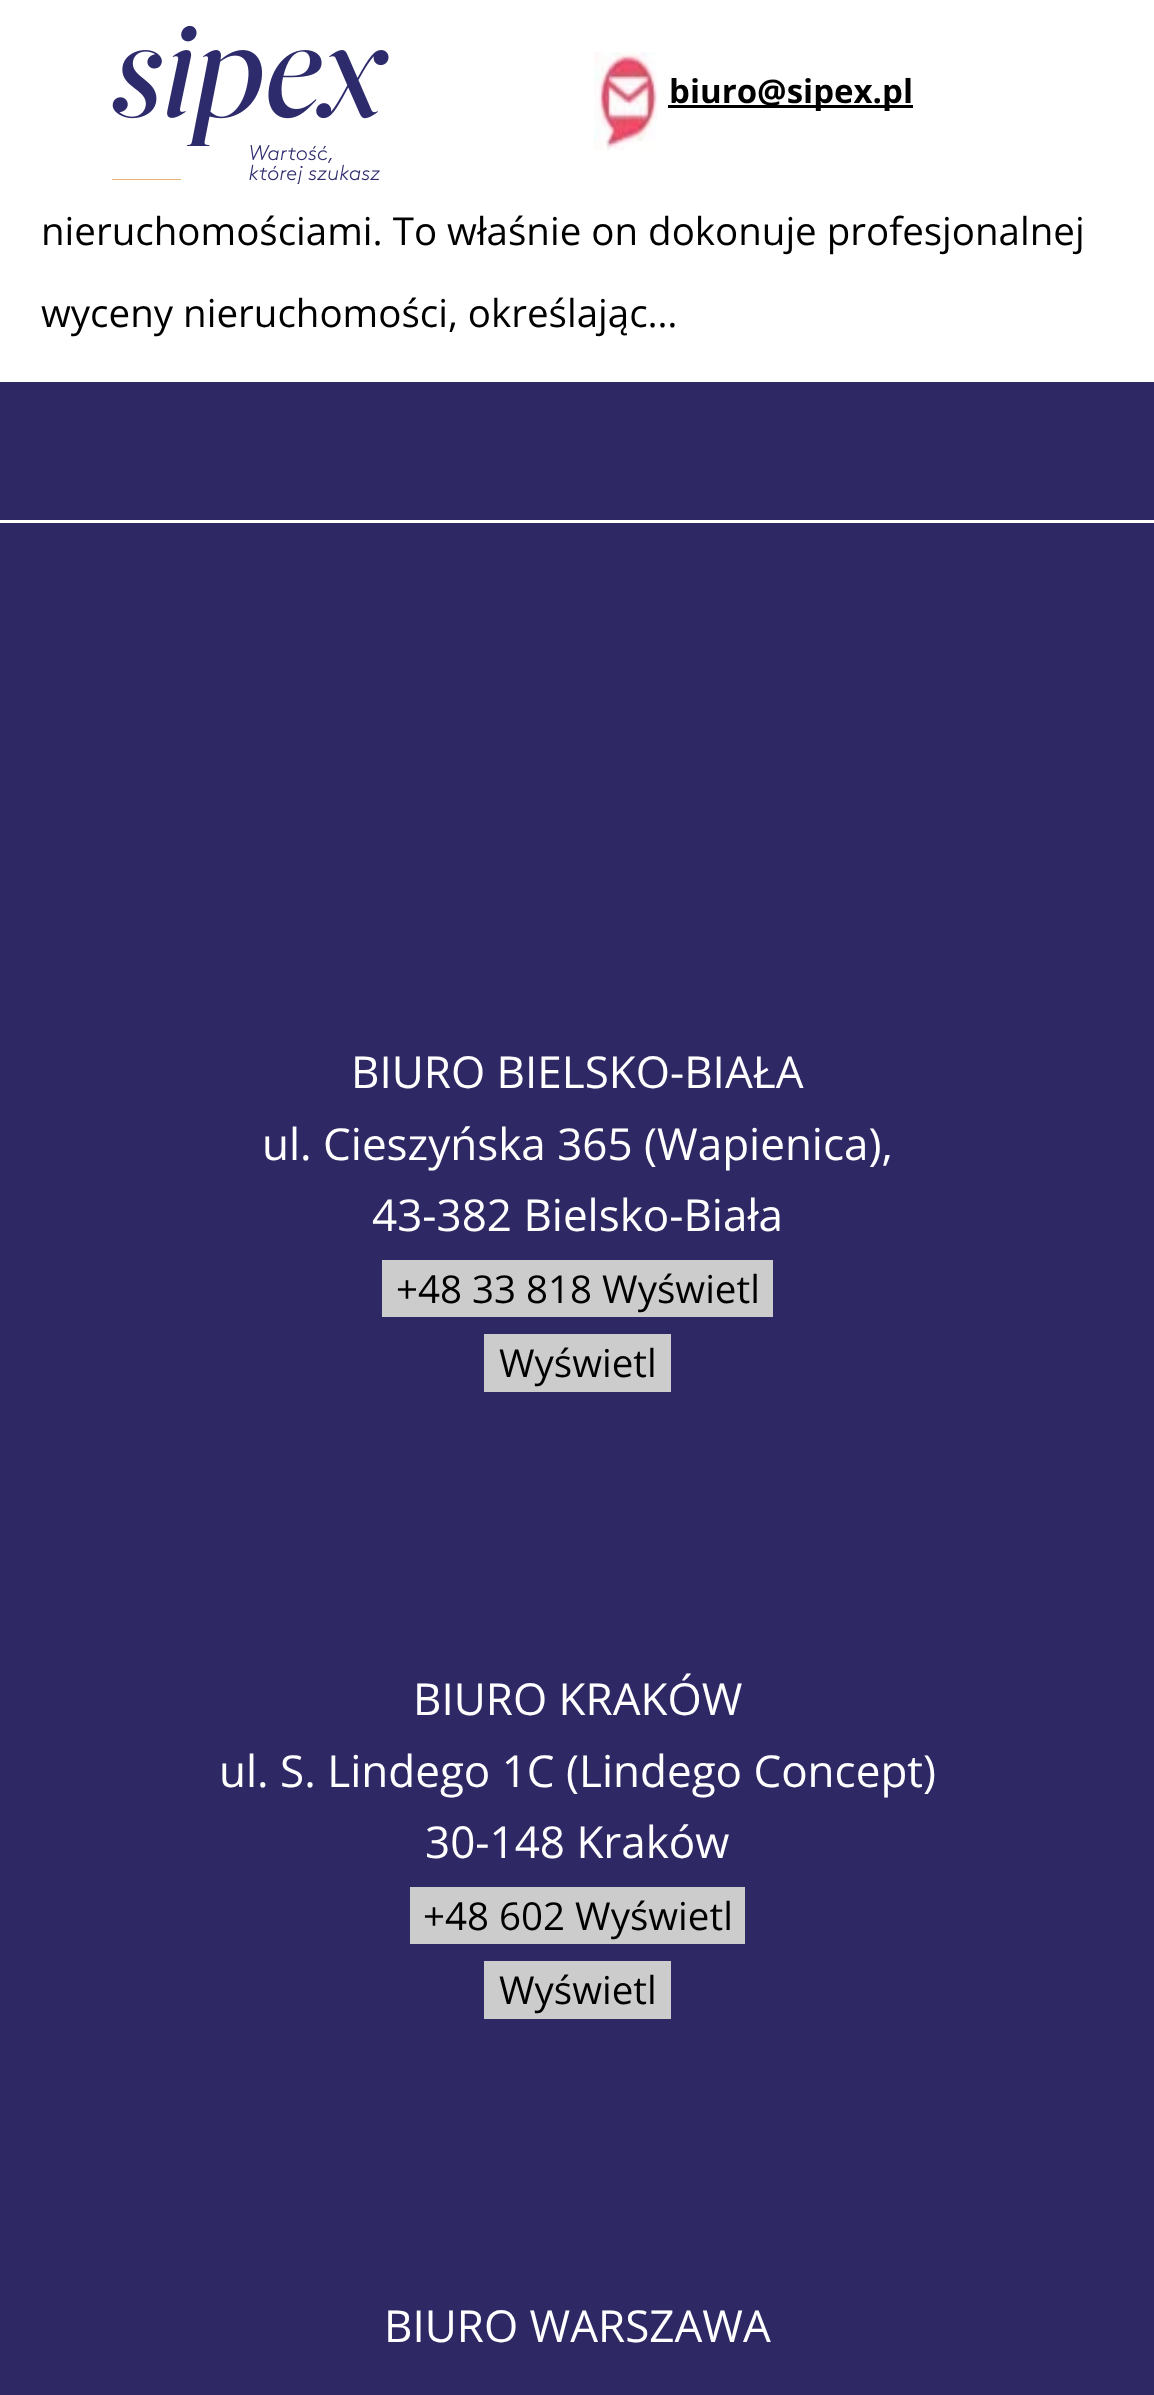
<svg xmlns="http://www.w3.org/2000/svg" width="1154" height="2395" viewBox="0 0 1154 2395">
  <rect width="100%" height="100%" fill="#fff"/>
  <image x="112" y="25" width="277" height="159" href="img/1.png"/>
  <image x="594" y="52" width="64" height="99" href="img/2.png"/>
  <path d="M668 105h245v3H668z" fill="#000"/>
  <path d="M0 382h1154v2013H0z" fill="#2e2864"/>
  <path d="M0 520h1154v3H0z" fill="#fff"/>
  <path d="M382 1260h391v57H382z" fill="#ccc"/>
  <path d="M484 1334h187v58H484z" fill="#ccc"/>
  <path d="M410 1887h335v57H410z" fill="#ccc"/>
  <path d="M484 1961h187v58H484z" fill="#ccc"/>
  <text x="669" y="103" font-family="Open Sans" font-size="33" font-weight="bold" fill="#000">biuro@sipex.pl</text>
  <g font-family="Open Sans" font-size="38.5" fill="#000">
    <text x="41" y="245">nieruchomościami. To właśnie on dokonuje profesjonalnej</text>
    <text x="41" y="327">wyceny nieruchomości, określając…</text>
  </g>
  <g font-family="Open Sans" font-size="44" fill="#fff">
    <text x="351" y="1088">BIURO BIELSKO-BIAŁA</text>
    <text x="262" y="1160">ul. Cieszyńska 365 (Wapienica),</text>
    <text x="372" y="1231">43-382 Bielsko-Biała</text>
  </g>
  <g font-family="Open Sans" font-size="38.5" fill="#000">
    <text x="396" y="1303">+48 33 818 Wyświetl</text>
    <text x="499" y="1377">Wyświetl</text>
  </g>
  <g font-family="Open Sans" font-size="44" fill="#fff">
    <text x="413" y="1715">BIURO KRAKÓW</text>
    <text x="219" y="1787">ul. S. Lindego 1C (Lindego Concept)</text>
    <text x="425" y="1858">30-148 Kraków</text>
  </g>
  <g font-family="Open Sans" font-size="38.5" fill="#000">
    <text x="423" y="1930">+48 602 Wyświetl</text>
    <text x="499" y="2004">Wyświetl</text>
  </g>
  <text x="384" y="2342" font-family="Open Sans" font-size="44" fill="#fff">BIURO WARSZAWA</text>
</svg>
